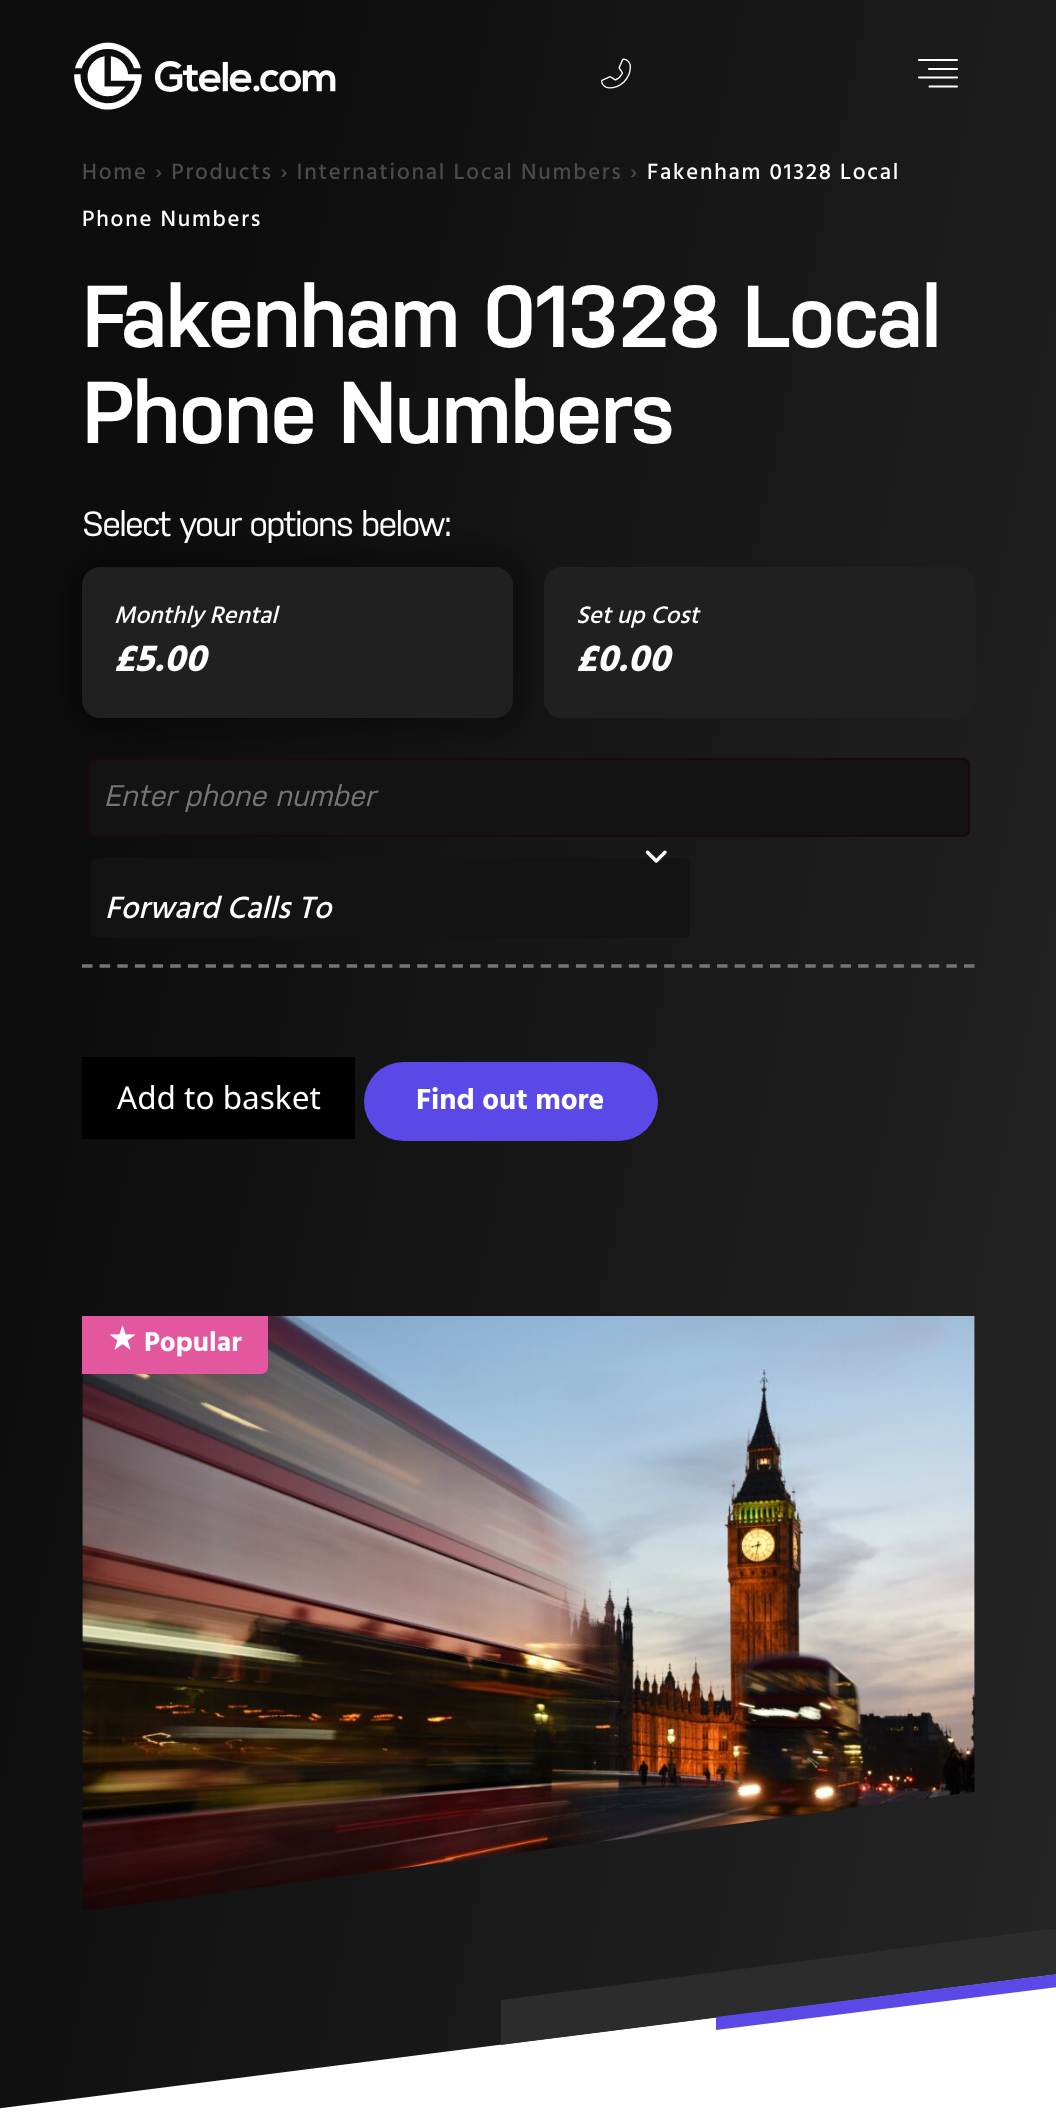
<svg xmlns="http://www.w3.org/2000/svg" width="1056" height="2112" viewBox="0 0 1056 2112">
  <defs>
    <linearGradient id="g1" gradientUnits="userSpaceOnUse" x1="-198" y1="855" x2="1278" y2="1159"><stop offset="0.19" stop-color="#0d0d0d"/><stop offset="1" stop-color="#262626"/></linearGradient>
    <clipPath id="clip1"><path d="M0 1929h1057v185H0z"/></clipPath>
  </defs>
  <rect width="100%" height="100%" fill="#fff"/>
  <path d="M0 0h1056v2109H0z" fill="url(#g1)"/>
  <image x="74" y="42" width="262" height="68" href="img/1.png"/>
  <image x="601" y="58" width="30" height="31" href="img/2.png"/>
  <path d="M919 60H957M929 69H957M919 77.5H957M929.5 86.5H957" fill="none" stroke="#fff" stroke-width="2.1" stroke-linecap="round" stroke-linejoin="round"/>
  <rect x="88" y="758" width="882" height="79" rx="7" fill="#131313"/>
  <rect x="89" y="759" width="880" height="77" rx="6" fill="none" stroke="#200707cc" stroke-width="2"/>
  <rect x="65" y="550" width="465" height="185" rx="35" fill="#00000040" filter="blur(9px)"/>
  <rect x="82" y="567" width="431" height="151" rx="18" fill="#202020"/>
  <rect x="544" y="567" width="431" height="151" rx="18" fill="#202020"/>
  <path d="M82 966H975" fill="none" stroke="#757575" stroke-width="3.5" stroke-dasharray="10.5 7.14"/>
  <rect x="91" y="858" width="599" height="80" rx="7" fill="#131313"/>
  <image x="645" y="850" width="22" height="13" href="img/3.png"/>
  <path d="M82 1057h273v82H82z" fill="#000"/>
  <rect x="364" y="1062" width="294" height="79" rx="39.5" fill="#5a49e7"/>
  <image x="82" y="1316" width="893" height="595" href="img/4.png"/>
  <path d="M82 1316H268V1367C268 1371 265 1374 261 1374H82Z" fill="#e2579e"/>
  <image x="110" y="1325" width="25" height="25" href="img/5.png"/>
  <path d="M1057 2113L-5 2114V2109L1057 1974Z" fill="#fff"/>
  <g clip-path="url(#clip1)">
    <path d="M501 2000V2045L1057 1974V1928Z" fill="#2c2c2c"/>
  </g>
  <path d="M716 2030V2017L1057 1974V1987Z" fill="#5a49e7"/>
  <text x="82" y="179" font-family="Hind" font-size="22.75" font-weight="500" letter-spacing="1.75" fill="#4c4b4b">Home › Products › International Local Numbers ›</text>
  <g font-family="Hind" font-size="22.75" font-weight="500" letter-spacing="1.75" fill="#fff">
    <text x="647" y="179">Fakenham 01328 Local</text>
    <text x="82" y="226">Phone Numbers</text>
  </g>
  <g font-family="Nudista" font-size="87.5" font-weight="600" letter-spacing="-2.6" fill="#fff">
    <text x="82" y="347">Fakenham 01328 Local</text>
    <text x="82" y="443">Phone Numbers</text>
  </g>
  <text x="82" y="536" font-family="Nudista" font-size="35" font-weight="500" letter-spacing="-1.75" fill="#fff">Select your options below:</text>
  <text x="114" y="623" font-family="Hind" font-size="24.5" font-weight="500" font-style="italic" fill="#fff">Monthly Rental</text>
  <text x="114" y="671" font-family="Hind" font-size="38.5" font-weight="bold" font-style="italic" fill="#fff">£5.00</text>
  <text x="576" y="623" font-family="Hind" font-size="24.5" font-weight="500" font-style="italic" fill="#fff">Set up Cost</text>
  <text x="576" y="671" font-family="Hind" font-size="38.5" font-weight="bold" font-style="italic" fill="#fff">£0.00</text>
  <text x="104" y="806" font-family="Nudista" font-size="29.75" font-weight="500" font-style="italic" fill="#757575">Enter phone number</text>
  <text x="105" y="918" font-family="Hind" font-size="31.5" font-weight="500" font-style="italic" fill="#fff">Forward Calls To</text>
  <text x="117" y="1109" font-family="Noto Sans" font-size="31.5" fill="#fff">Add to basket</text>
  <text x="416" y="1109" font-family="Hind" font-size="29.75" font-weight="bold" fill="#fff">Find out more</text>
  <text x="144" y="1351" font-family="Hind" font-size="28" font-weight="bold" fill="#fff">Popular</text>
</svg>
